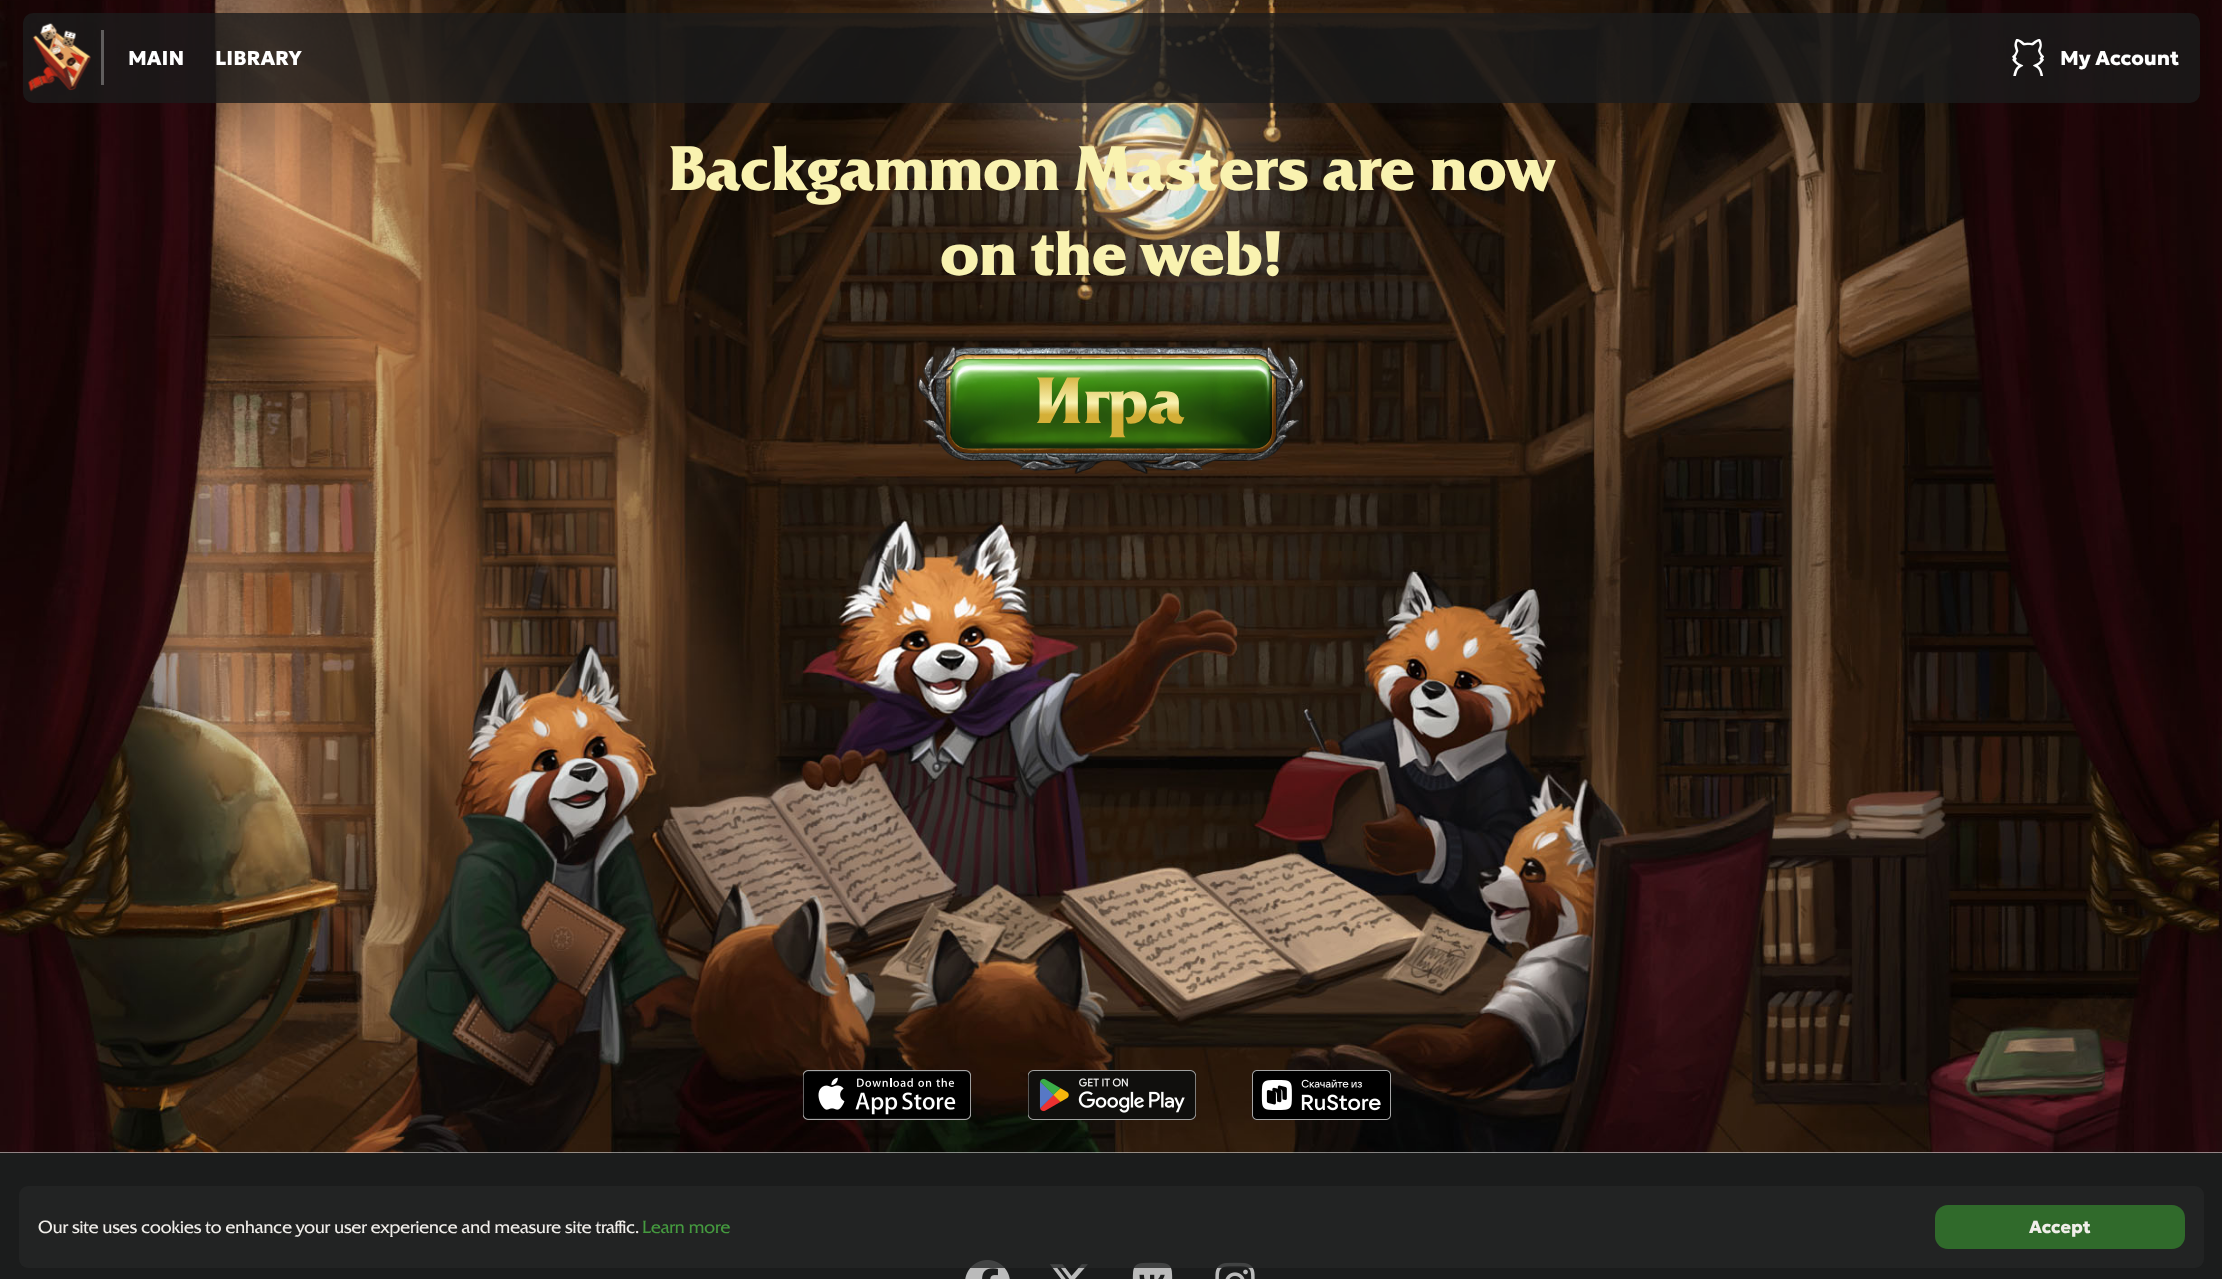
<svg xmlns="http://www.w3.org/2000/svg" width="2222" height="1279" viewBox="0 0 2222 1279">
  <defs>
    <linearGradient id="g1" gradientUnits="userSpaceOnUse" x1="1111" y1="345" x2="1111" y2="461"><stop offset="0" stop-color="#d4af37"/><stop offset="0.25" stop-color="#d4af37"/><stop offset="0.5" stop-color="#f9f2b0"/><stop offset="0.6" stop-color="#d4af37"/><stop offset="1" stop-color="#d4af37"/></linearGradient>
  </defs>
  <rect width="100%" height="100%" fill="#fff"/>
  <image x="0" y="0" width="2222" height="1153" href="img/3.png"/>
  <rect x="23" y="13" width="2177" height="90" rx="10" fill="#1b1c1ccc"/>
  <image x="28" y="23" width="63" height="69" href="img/1.png"/>
  <path d="M101 30h3v55H101z" fill="#605d5d"/>
  <image x="2012" y="39" width="32" height="37" href="img/2.png"/>
  <image x="917" y="346" width="388" height="128" href="img/4.png"/>
  <image x="1118" y="453" width="122" height="21" href="img/5.png"/>
  <image x="803" y="1070" width="168" height="50" href="img/6.png"/>
  <image x="1028" y="1070" width="168" height="50" href="img/7.png"/>
  <image x="1252" y="1070" width="139" height="50" href="img/8.png"/>
  <path d="M0 1153h2222v126H0z" fill="#1b1c1c"/>
  <image x="965" y="1260" width="45" height="19" href="img/9.png"/>
  <image x="1050" y="1264" width="38" height="15" href="img/10.png"/>
  <image x="1132" y="1262" width="41" height="17" href="img/11.png"/>
  <image x="1215" y="1262" width="40" height="17" href="img/12.png"/>
  <rect x="19" y="1186" width="2185" height="82" rx="9" fill="#242526cc"/>
  <rect x="1935" y="1205" width="250" height="44" rx="13" fill="#306a2b"/>
  <g font-family="Geologica" font-size="20" font-weight="100" fill="#fff">
    <text x="128" y="65">MAIN</text>
    <text x="215" y="65">LIBRARY</text>
    <text x="2060" y="65">My Account</text>
  </g>
  <g font-family="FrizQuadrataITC" font-size="62.5" font-weight="bold" fill="#f9f2b0">
    <text x="668" y="190">Backgammon Masters are now</text>
    <text x="940" y="275">on the web!</text>
  </g>
  <text x="1034" y="423" font-family="FrizQuadrataITC" font-size="65" font-weight="bold" fill="url(#g1)">Игра</text>
  <text x="38" y="1233" font-family="FrizQuadrataITC" font-size="17.5" fill="#f1eeea">Our site uses cookies to enhance your user experience and measure site traffic.</text>
  <text x="642" y="1233" font-family="FrizQuadrataITC" font-size="17.5" fill="#459a3f">Learn more</text>
  <text x="2029" y="1233" font-family="Geologica" font-size="17.5" font-weight="100" fill="#f1eeea">Accept</text>
</svg>
